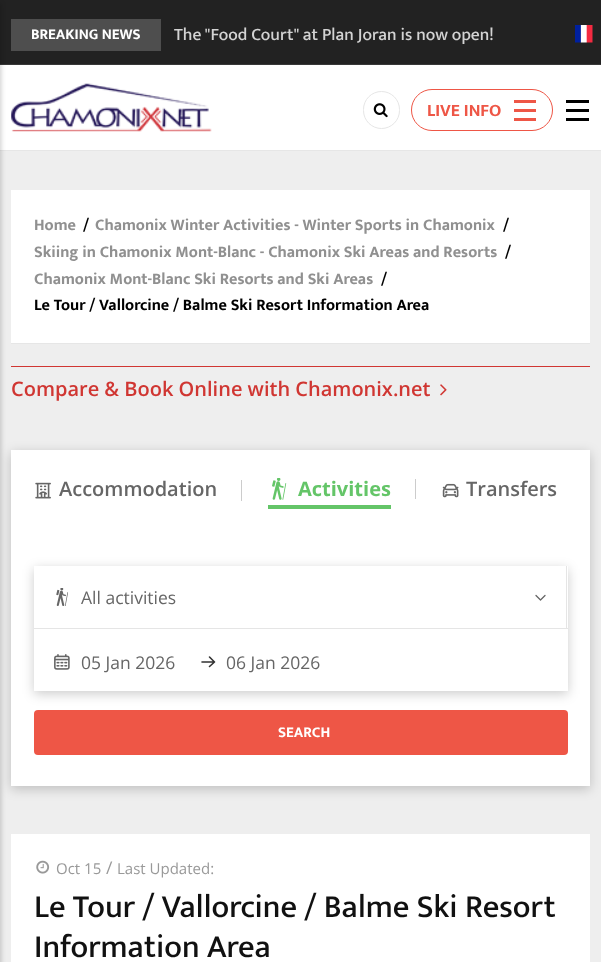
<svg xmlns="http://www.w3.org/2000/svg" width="601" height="962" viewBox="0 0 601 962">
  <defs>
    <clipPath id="clip1"><path d="M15 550H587V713H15ZM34 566H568V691H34Z" clip-rule="evenodd"/></clipPath>
  </defs>
  <rect width="100%" height="100%" fill="#eee"/>
  <path d="M0 0h601v64H0z" fill="#222"/>
  <path d="M0 64h601v1H0z" fill="#383838"/>
  <path d="M11 19h150v32H11z" fill="#4e4e4e"/>
  <image x="575" y="25" width="18" height="18" href="img/1.png"/>
  <path d="M0 65h601v85H0z" fill="#fff"/>
  <path d="M0 150h601v1H0z" fill="#e6e6e6"/>
  <image x="11" y="83" width="201" height="49" href="img/2.png"/>
  <path d="M-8 4h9v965H-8z" fill="#00000033" filter="blur(2.5px)"/>
  <rect x="363.5" y="91.5" width="36" height="37" rx="18" fill="none" stroke="#e6e6e6"/>
  <image x="373" y="103" width="15" height="15" href="img/3.png"/>
  <rect x="411.5" y="89.5" width="141" height="41" rx="20.5" fill="none" stroke="#ee5646"/>
  <path d="M514 100h22v3H514z" fill="#ee5646"/>
  <path d="M514 109h22v3H514z" fill="#ee5646"/>
  <path d="M514 118h22v3H514z" fill="#ee5646"/>
  <path d="M566 100h23v3H566z" fill="#000"/>
  <path d="M566 109h23v3H566z" fill="#000"/>
  <path d="M566 118h23v3H566z" fill="#000"/>
  <path d="M11 190h579v153H11z" fill="#fff"/>
  <path d="M11 343h579v1H11z" fill="#e6e6e6"/>
  <path d="M11 366h579v1H11z" fill="#d03632"/>
  <image x="440" y="384" width="7" height="12" href="img/4.png"/>
  <path d="M11 453h579v336H11z" fill="#00000033" filter="blur(6px)"/>
  <path d="M11 450h579v336H11z" fill="#fff"/>
  <image x="35" y="482" width="16" height="17" href="img/5.png"/>
  <path d="M241 480h1v21H241z" fill="#ccc"/>
  <image x="272" y="478" width="15" height="22" href="img/6.png"/>
  <path d="M268 505h123v4H268z" fill="#64c568"/>
  <path d="M415 479h1v20H415z" fill="#ccc"/>
  <image x="442" y="483" width="17" height="15" href="img/7.png"/>
  <g clip-path="url(#clip1)">
    <path d="M34 569h534v125H34z" fill="#00000033" filter="blur(6px)"/>
  </g>
  <path d="M566 566h1v63H566z" fill="#e5e5e5"/>
  <path d="M34 628h534v1H34z" fill="#e5e5e5"/>
  <image x="56" y="588" width="12" height="18" href="img/8.png"/>
  <path d="M536 595.5L540.5 600L545 595.5" fill="none" stroke="#666" stroke-width="1.3" stroke-linecap="round" stroke-linejoin="round"/>
  <image x="54" y="654" width="16" height="16" href="img/9.png"/>
  <path d="M214.5 662H202M209.5 666.5L214.5 662L209.5 657" fill="none" stroke="#323232" stroke-width="1.6" stroke-linecap="round" stroke-linejoin="round"/>
  <rect x="34" y="710" width="534" height="45" rx="4" fill="#ee5646"/>
  <path d="M11 834h579v128H11z" fill="#fff"/>
  <image x="36" y="860" width="14" height="14" href="img/10.png"/>
  <text x="31" y="39" font-family="Mukta Vaani" font-size="15" font-weight="bold" fill="#fff">BREAKING NEWS</text>
  <text x="174" y="40" font-family="Mukta Vaani" font-size="17.5" font-weight="500" fill="#d3d3d3">The "Food Court" at Plan Joran is now open!</text>
  <text x="427" y="116" font-family="Mukta Vaani" font-size="17.5" font-weight="bold" fill="#ee5646">LIVE INFO</text>
  <text x="34" y="230" font-family="Mukta Vaani" font-size="16.25" font-weight="bold" fill="#909090">Home</text>
  <text x="83" y="230" font-family="Mukta Vaani" font-size="16.25" font-weight="bold" fill="#000">/</text>
  <text x="95" y="230" font-family="Mukta Vaani" font-size="16.25" font-weight="bold" fill="#909090">Chamonix Winter Activities - Winter Sports in Chamonix</text>
  <text x="503" y="230" font-family="Mukta Vaani" font-size="16.25" font-weight="bold" fill="#000">/</text>
  <text x="34" y="257" font-family="Mukta Vaani" font-size="16.25" font-weight="bold" fill="#909090">Skiing in Chamonix Mont-Blanc - Chamonix Ski Areas and Resorts</text>
  <text x="505" y="257" font-family="Mukta Vaani" font-size="16.25" font-weight="bold" fill="#000">/</text>
  <text x="34" y="284" font-family="Mukta Vaani" font-size="16.25" font-weight="bold" fill="#909090">Chamonix Mont-Blanc Ski Resorts and Ski Areas</text>
  <g font-family="Mukta Vaani" font-size="16.25" font-weight="bold" fill="#000">
    <text x="381" y="284">/</text>
    <text x="34" y="310">Le Tour / Vallorcine / Balme Ski Resort Information Area</text>
  </g>
  <text x="11" y="396" font-family="Open Sans" font-size="20" font-weight="600" fill="#d03632">Compare &amp; Book Online with Chamonix.net</text>
  <text x="59" y="496" font-family="Open Sans" font-size="20" font-weight="600" fill="#666">Accommodation</text>
  <text x="298" y="496" font-family="Open Sans" font-size="20" font-weight="bold" fill="#64c568">Activities</text>
  <text x="466" y="496" font-family="Open Sans" font-size="20" font-weight="600" fill="#666">Transfers</text>
  <g font-family="Open Sans" font-size="17.5" fill="#666">
    <text x="81" y="604">All activities</text>
    <text x="81" y="669">05 Jan 2026</text>
    <text x="226" y="669">06 Jan 2026</text>
  </g>
  <text x="278" y="737" font-family="Mukta Vaani" font-size="15" font-weight="bold" fill="#fff">SEARCH</text>
  <text x="56" y="874" font-family="Open Sans" font-size="15" fill="#999">Oct 15</text>
  <text x="106" y="874" font-family="Open Sans" font-size="17.5" fill="#999">/</text>
  <text x="117" y="874" font-family="Open Sans" font-size="15" fill="#999">Last Updated:</text>
  <g font-family="Mukta Vaani" font-size="32.5" font-weight="500" fill="#111">
    <text x="34" y="917">Le Tour / Vallorcine / Balme Ski Resort</text>
    <text x="34" y="957">Information Area</text>
  </g>
</svg>
